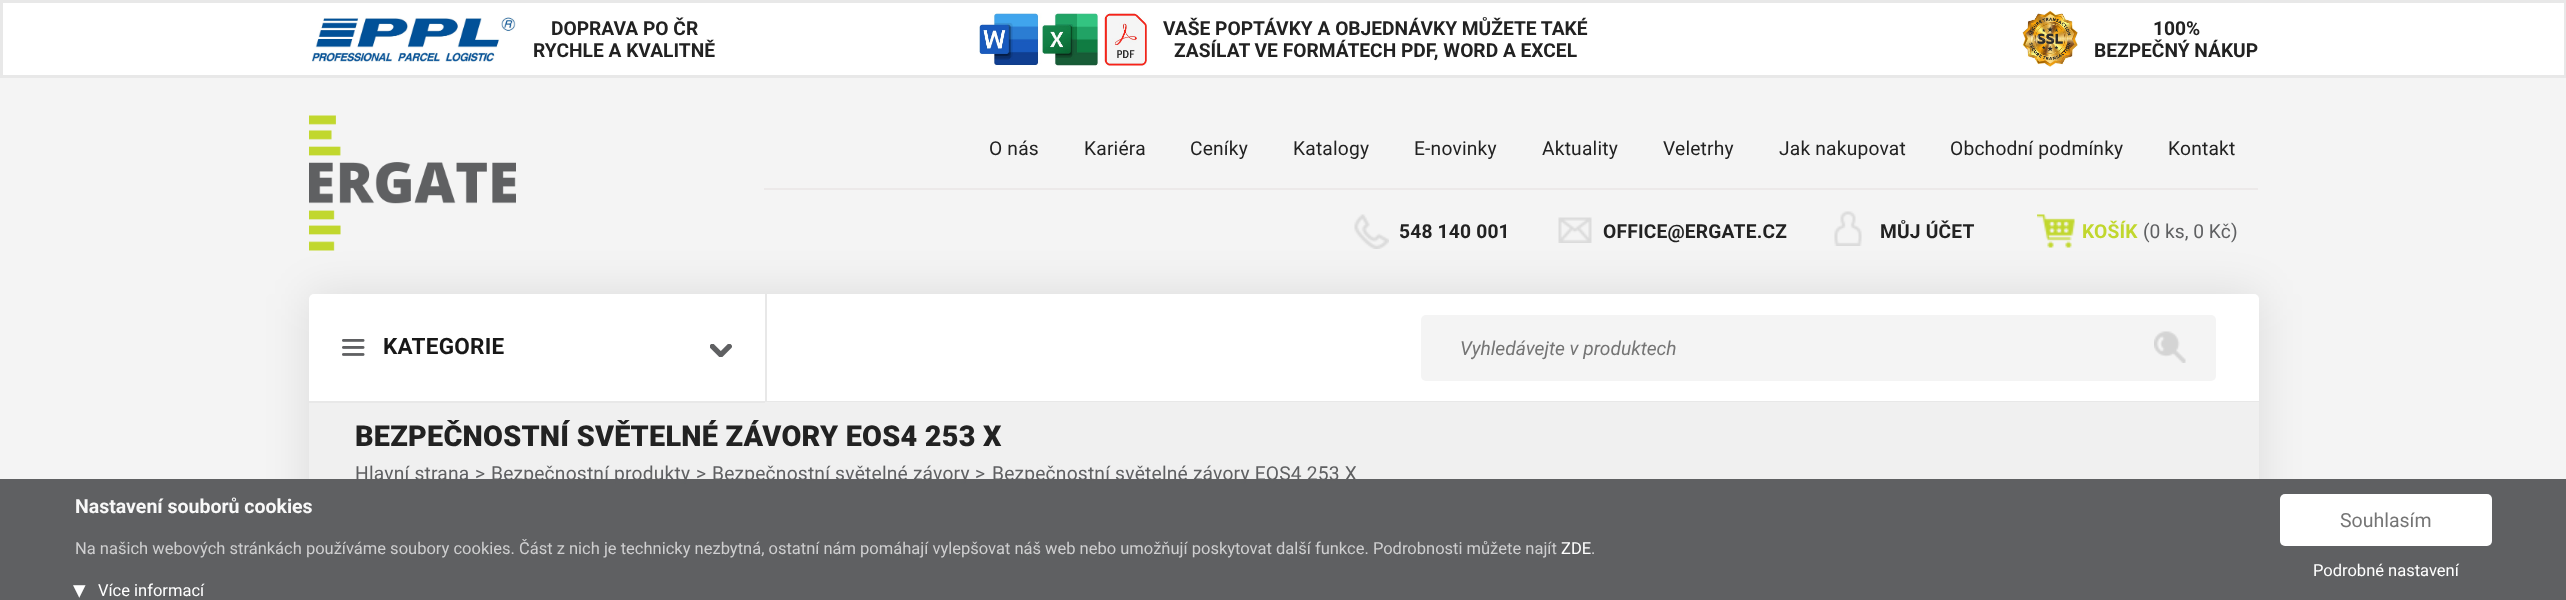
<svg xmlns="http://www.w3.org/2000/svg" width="2566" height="600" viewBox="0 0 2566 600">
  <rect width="100%" height="100%" fill="#f4f4f4"/>
  <path d="M1.5 1.5h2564v75H1.5z" fill="#fff" stroke="#e8e8e8" stroke-width="3"/>
  <image x="311" y="17" width="205" height="45" href="img/1.png"/>
  <image x="979" y="13" width="168" height="53" href="img/2.png"/>
  <image x="2022" y="10" width="56" height="57" href="img/3.png"/>
  <rect x="309" y="294" width="1950" height="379" rx="5" fill="#0000001a" filter="blur(22.5px)"/>
  <image x="309" y="115" width="207" height="136" href="img/4.png"/>
  <path d="M764 188h1494v2H764z" fill="#ece9e9"/>
  <image x="1354" y="214" width="35" height="35" href="img/5.png"/>
  <image x="1558" y="217" width="34" height="26" href="img/6.png"/>
  <image x="1834" y="211" width="28" height="35" href="img/7.png"/>
  <image x="2037" y="214" width="38" height="34" href="img/8.png"/>
  <rect x="309" y="294" width="1950" height="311" rx="5" fill="#fff"/>
  <path d="M765 294h2v108H765z" fill="#e8e8e8"/>
  <image x="342" y="339" width="23" height="17" href="img/9.png"/>
  <path d="M309 402h1950v77H309z" fill="#f0f0f0"/>
  <path d="M309 401h456v2H309z" fill="#e8e8e8"/>
  <image x="710" y="344" width="22" height="13" href="img/10.png"/>
  <path d="M767 401h1492v1H767z" fill="#e8e8e8"/>
  <rect x="1421" y="315" width="795" height="66" rx="5" fill="#f4f4f4"/>
  <image x="2154" y="331" width="32" height="32" href="img/11.png"/>
  <path d="M0 479h2566v121H0z" fill="#5f6062"/>
  <rect x="2280" y="494" width="212" height="52" rx="5" fill="#fff"/>
  <g font-family="Roboto" font-size="19.2" font-weight="bold" fill="#222">
    <text x="551" y="35">DOPRAVA PO ČR</text>
    <text x="533" y="57">RYCHLE A KVALITNĚ</text>
    <text x="1163" y="35">VAŠE POPTÁVKY A OBJEDNÁVKY MŮŽETE TAKÉ</text>
    <text x="1174" y="57">ZASÍLAT VE FORMÁTECH PDF, WORD A EXCEL</text>
    <text x="2153" y="35">100%</text>
    <text x="2094" y="57">BEZPEČNÝ NÁKUP</text>
  </g>
  <g font-family="Roboto" font-size="19.2" letter-spacing="0.2" fill="#222">
    <text x="989" y="155">O nás</text>
    <text x="1084" y="155">Kariéra</text>
    <text x="1190" y="155">Ceníky</text>
    <text x="1293" y="155">Katalogy</text>
    <text x="1414" y="155">E-novinky</text>
    <text x="1542" y="155">Aktuality</text>
    <text x="1663" y="155">Veletrhy</text>
    <text x="1779" y="155">Jak nakupovat</text>
    <text x="1950" y="155">Obchodní podmínky</text>
    <text x="2168" y="155">Kontakt</text>
  </g>
  <g font-family="Roboto" font-size="19.2" font-weight="bold" letter-spacing="0.2" fill="#222">
    <text x="1399" y="238">548 140 001</text>
    <text x="1603" y="238">OFFICE@ERGATE.CZ</text>
    <text x="1880" y="238">MŮJ ÚČET</text>
  </g>
  <text x="2082" y="238" font-family="Roboto" font-size="19.2" font-weight="bold" letter-spacing="0.2" fill="#c1d72e">KOŠÍK</text>
  <text x="2143" y="238" font-family="Roboto" font-size="19.2" fill="#5f6062">(0 ks, 0 Kč)</text>
  <text x="383" y="354" font-family="Roboto" font-size="22.5" font-weight="bold" letter-spacing="0.25" fill="#181818">KATEGORIE</text>
  <text x="1460" y="355" font-family="Roboto" font-size="19.2" font-style="italic" fill="#757575">Vyhledávejte v produktech</text>
  <text x="355" y="446" font-family="Roboto" font-size="28.8" font-weight="900" letter-spacing="0.25" fill="#222">BEZPEČNOSTNÍ SVĚTELNÉ ZÁVORY EOS4 253 X</text>
  <g font-family="Roboto" font-size="19.2" letter-spacing="0.2" fill="#5f6062">
    <text x="355" y="480">Hlavní strana</text>
    <text x="475" y="480">&gt;</text>
    <text x="491" y="480">Bezpečnostní produkty</text>
    <text x="696" y="480">&gt;</text>
    <text x="712" y="480">Bezpečnostní světelné závory</text>
    <text x="975" y="480">&gt;</text>
    <text x="992" y="480">Bezpečnostní světelné závory EOS4 253 X</text>
  </g>
  <text x="75" y="513" font-family="Roboto" font-size="19.5" font-weight="bold" fill="#f8f8f8">Nastavení souborů cookies</text>
  <text x="75" y="554" font-family="Roboto" font-size="16.5" fill="#cfcfd0">Na našich webových stránkách používáme soubory cookies. Část z nich je technicky nezbytná, ostatní nám pomáhají vylepšovat náš web nebo umožňují poskytovat další funkce. Podrobnosti můžete najít</text>
  <text x="1561" y="554" font-family="Roboto" font-size="16.5" fill="#fff">ZDE</text>
  <text x="1591" y="554" font-family="Roboto" font-size="16.5" fill="#cfcfd0">.</text>
  <text x="2340" y="527" font-family="Roboto" font-size="19.5" fill="#757575">Souhlasím</text>
  <text x="2313" y="576" font-family="Roboto" font-size="16.5" fill="#fff">Podrobné nastavení</text>
  <text x="73" y="598" font-family="DejaVu Sans" font-size="25" fill="#fff">▾</text>
  <text x="98" y="596" font-family="Roboto" font-size="16.5" fill="#fff">Více informací</text>
</svg>
